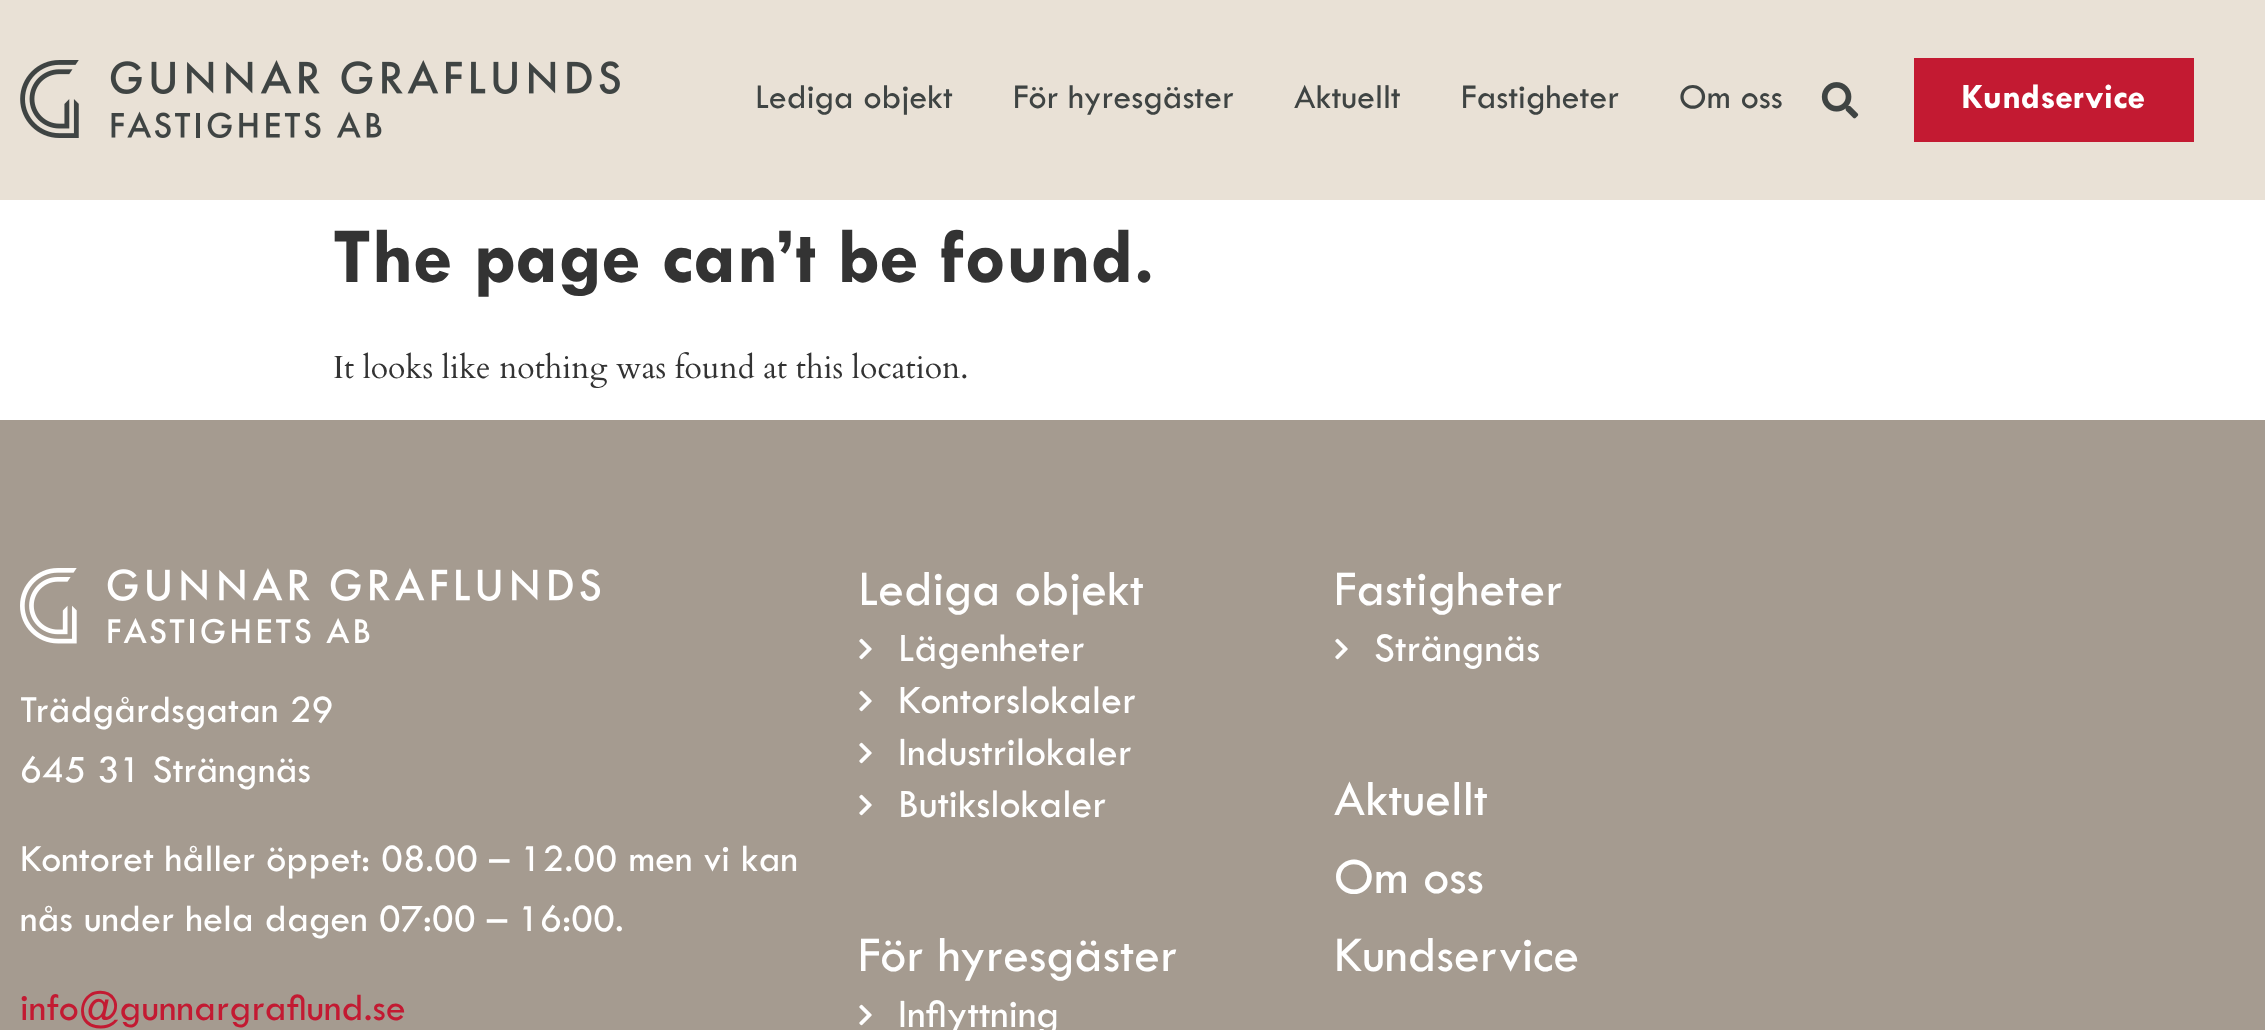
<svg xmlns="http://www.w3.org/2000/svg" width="2265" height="1030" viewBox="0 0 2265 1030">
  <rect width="100%" height="100%" fill="#fff"/>
  <path d="M0 0h2265v200H0z" fill="#e9e1d6"/>
  <image x="20" y="60" width="600" height="78" href="img/1.png"/>
  <image x="1821" y="82" width="38" height="37" href="img/2.png"/>
  <path d="M1914 58h280v84H1914z" fill="#c31a32"/>
  <path d="M0 420h2265v610H0z" fill="#a59b90"/>
  <image x="20" y="568" width="580" height="76" href="img/3.png"/>
  <image x="859" y="638" width="13" height="22" href="img/4.png"/>
  <image x="859" y="690" width="13" height="22" href="img/4.png"/>
  <image x="859" y="742" width="13" height="22" href="img/4.png"/>
  <image x="859" y="794" width="13" height="22" href="img/4.png"/>
  <image x="859" y="1004" width="13" height="22" href="img/4.png"/>
  <image x="1335" y="638" width="13" height="22" href="img/4.png"/>
  <g font-family="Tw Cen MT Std" font-size="36" font-weight="500" fill="#3f4443">
    <text x="755" y="108">Lediga objekt</text>
    <text x="1013" y="108">För hyresgäster</text>
    <text x="1294" y="108">Aktuellt</text>
    <text x="1461" y="108">Fastigheter</text>
    <text x="1679" y="108">Om oss</text>
  </g>
  <text x="1961" y="108" font-family="Tw Cen MT Std" font-size="36" font-weight="bold" fill="#fff">Kundservice</text>
  <text x="333" y="282" font-family="Tw Cen MT Std" font-size="80" font-weight="bold" fill="#333">The page can’t be found.</text>
  <text x="333" y="378" font-family="Cardo" font-size="32" fill="#333">It looks like nothing was found at this location.</text>
  <g font-family="Tw Cen MT Std" font-size="40" font-weight="500" fill="#fff">
    <text x="20" y="722">Trädgårdsgatan 29</text>
    <text x="20" y="782">645 31 Strängnäs</text>
    <text x="20" y="871">Kontoret håller öppet: 08.00 – 12.00 men vi kan</text>
    <text x="20" y="931">nås under hela dagen 07:00 – 16:00.</text>
  </g>
  <text x="20" y="1020" font-family="Tw Cen MT Std" font-size="40" font-weight="500" fill="#c31a32">info@gunnargraflund.se</text>
  <text x="858" y="605" font-family="Tw Cen MT Std" font-size="52" font-weight="500" fill="#fff">Lediga objekt</text>
  <g font-family="Tw Cen MT Std" font-size="42" font-weight="500" fill="#fff">
    <text x="898" y="661">Lägenheter</text>
    <text x="898" y="713">Kontorslokaler</text>
    <text x="898" y="765">Industrilokaler</text>
    <text x="898" y="817">Butikslokaler</text>
  </g>
  <text x="858" y="971" font-family="Tw Cen MT Std" font-size="52" font-weight="500" fill="#fff">För hyresgäster</text>
  <text x="898" y="1027" font-family="Tw Cen MT Std" font-size="42" font-weight="500" fill="#fff">Inflyttning</text>
  <text x="1334" y="605" font-family="Tw Cen MT Std" font-size="52" font-weight="500" fill="#fff">Fastigheter</text>
  <text x="1374" y="661" font-family="Tw Cen MT Std" font-size="42" font-weight="500" fill="#fff">Strängnäs</text>
  <g font-family="Tw Cen MT Std" font-size="52" font-weight="500" fill="#fff">
    <text x="1334" y="815">Aktuellt</text>
    <text x="1334" y="893">Om oss</text>
    <text x="1334" y="971">Kundservice</text>
  </g>
</svg>
